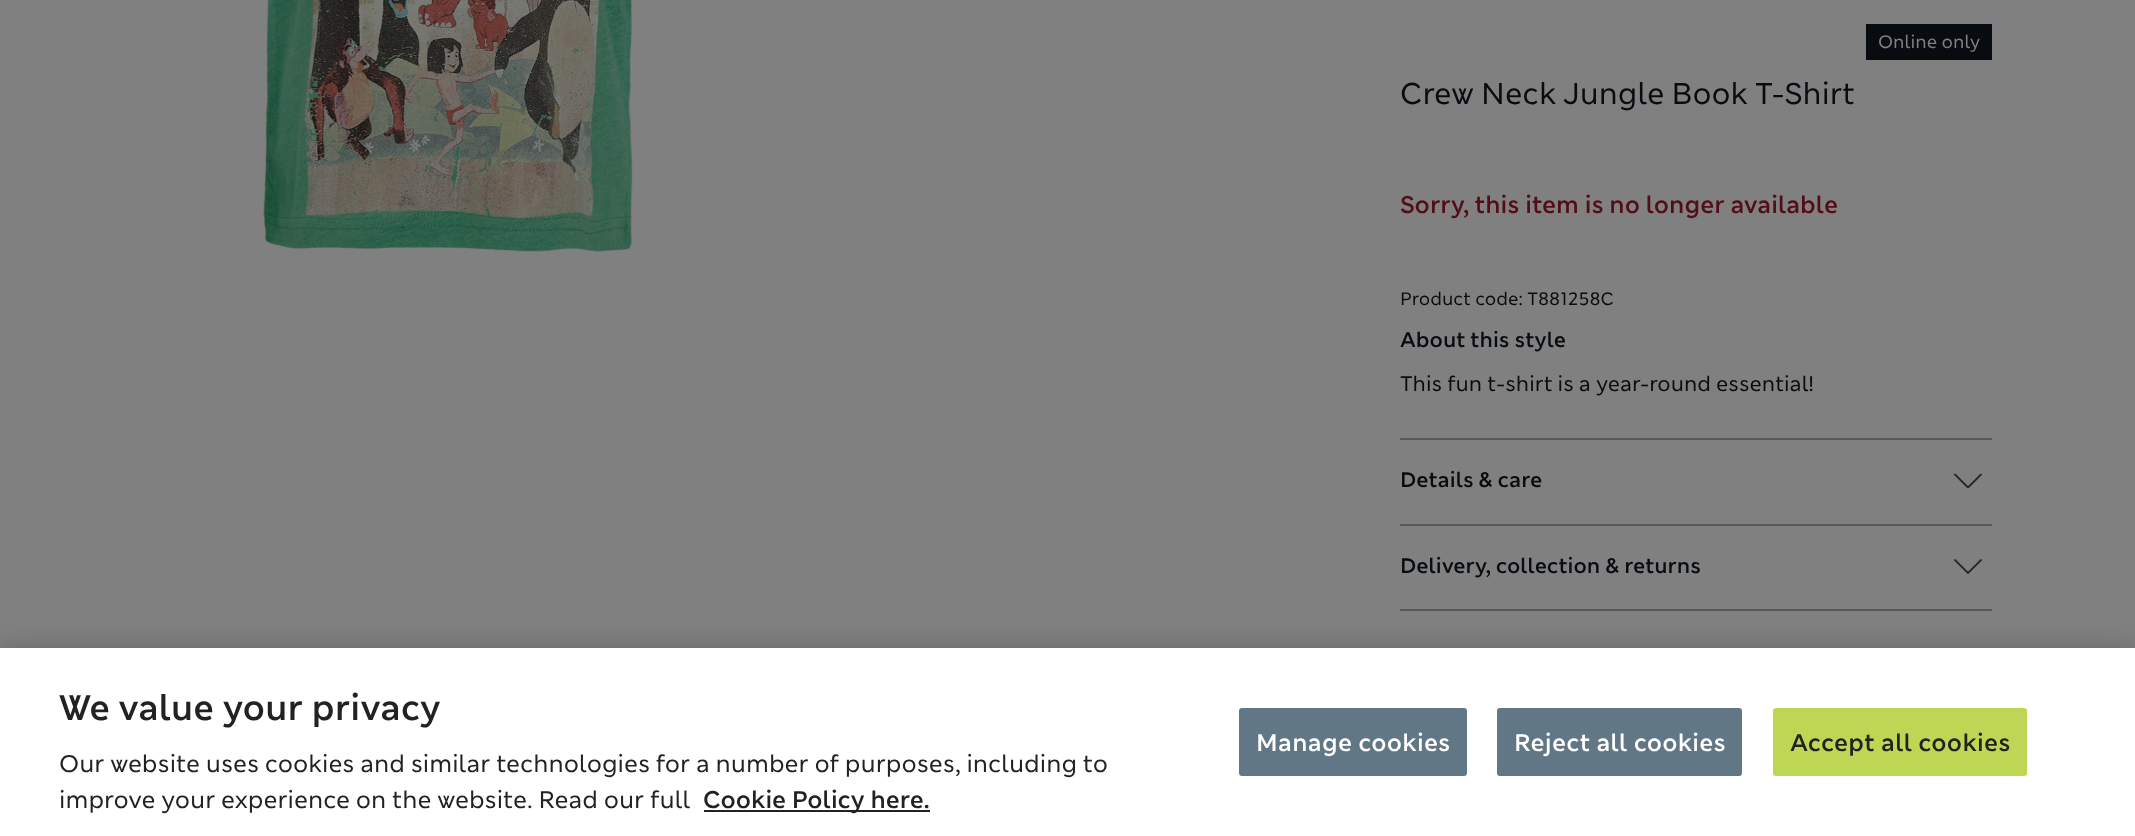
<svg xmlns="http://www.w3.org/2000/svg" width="2135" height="836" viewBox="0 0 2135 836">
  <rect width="100%" height="100%" fill="#808080"/>
  <image x="263" y="0" width="370" height="252" href="img/1.png"/>
  <path d="M1866 24h126v36H1866z" fill="#080c10"/>
  <path d="M1400 438h592v2H1400z" fill="#585858"/>
  <path d="M1400 524h592v2H1400z" fill="#585858"/>
  <image x="1953" y="473" width="30" height="16" href="img/2.png"/>
  <path d="M1400 609h592v2H1400z" fill="#585858"/>
  <image x="1953" y="559" width="30" height="15" href="img/3.png"/>
  <path d="M0 648h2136v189H0z" fill="#00000033" filter="blur(13.5px)"/>
  <path d="M0 648h2135v188H0z" fill="#fff"/>
  <path d="M704 810h226v2H704z" fill="#222"/>
  <rect x="1240" y="709" width="226" height="66" rx="2" fill="#627786" stroke="#627786" stroke-width="2"/>
  <rect x="1498" y="709" width="243" height="66" rx="2" fill="#627786" stroke="#627786" stroke-width="2"/>
  <rect x="1774" y="709" width="252" height="66" rx="2" fill="#bdd755" stroke="#bdd755" stroke-width="2"/>
  <text x="1878" y="48" font-family="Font" font-size="18" fill="#808080">Online only</text>
  <text x="1400" y="104" font-family="Font" font-size="30" fill="#080c10">Crew Neck Jungle Book T-Shirt</text>
  <text x="1400" y="213" font-family="Font" font-size="24" font-weight="600" fill="#530d17">Sorry, this item is no longer available</text>
  <text x="1400" y="305" font-family="Font" font-size="18" fill="#080c10">Product code: T881258C</text>
  <text x="1400" y="347" font-family="Font" font-size="21" font-weight="600" fill="#080c10">About this style</text>
  <text x="1400" y="391" font-family="Font" font-size="21" fill="#080c10">This fun t-shirt is a year-round essential!</text>
  <g font-family="Font" font-size="21" font-weight="600" fill="#080c10">
    <text x="1400" y="487">Details &amp; care</text>
    <text x="1400" y="573">Delivery, collection &amp; returns</text>
  </g>
  <text x="59" y="720" font-family="Font" font-size="35.5" font-weight="600" fill="#222">We value your privacy</text>
  <g font-family="Font" font-size="24" fill="#222">
    <text x="59" y="772">Our website uses cookies and similar technologies for a number of purposes, including to</text>
    <text x="59" y="808">improve your experience on the website. Read our full</text>
  </g>
  <text x="703" y="808" font-family="Font" font-size="24" font-weight="600" fill="#222">Cookie Policy here.</text>
  <g font-family="Font" font-size="24" font-weight="600" letter-spacing="0.25" fill="#fff">
    <text x="1256" y="751">Manage cookies</text>
    <text x="1514" y="751">Reject all cookies</text>
  </g>
  <text x="1790" y="751" font-family="Font" font-size="24" font-weight="600" letter-spacing="0.25" fill="#222">Accept all cookies</text>
</svg>
